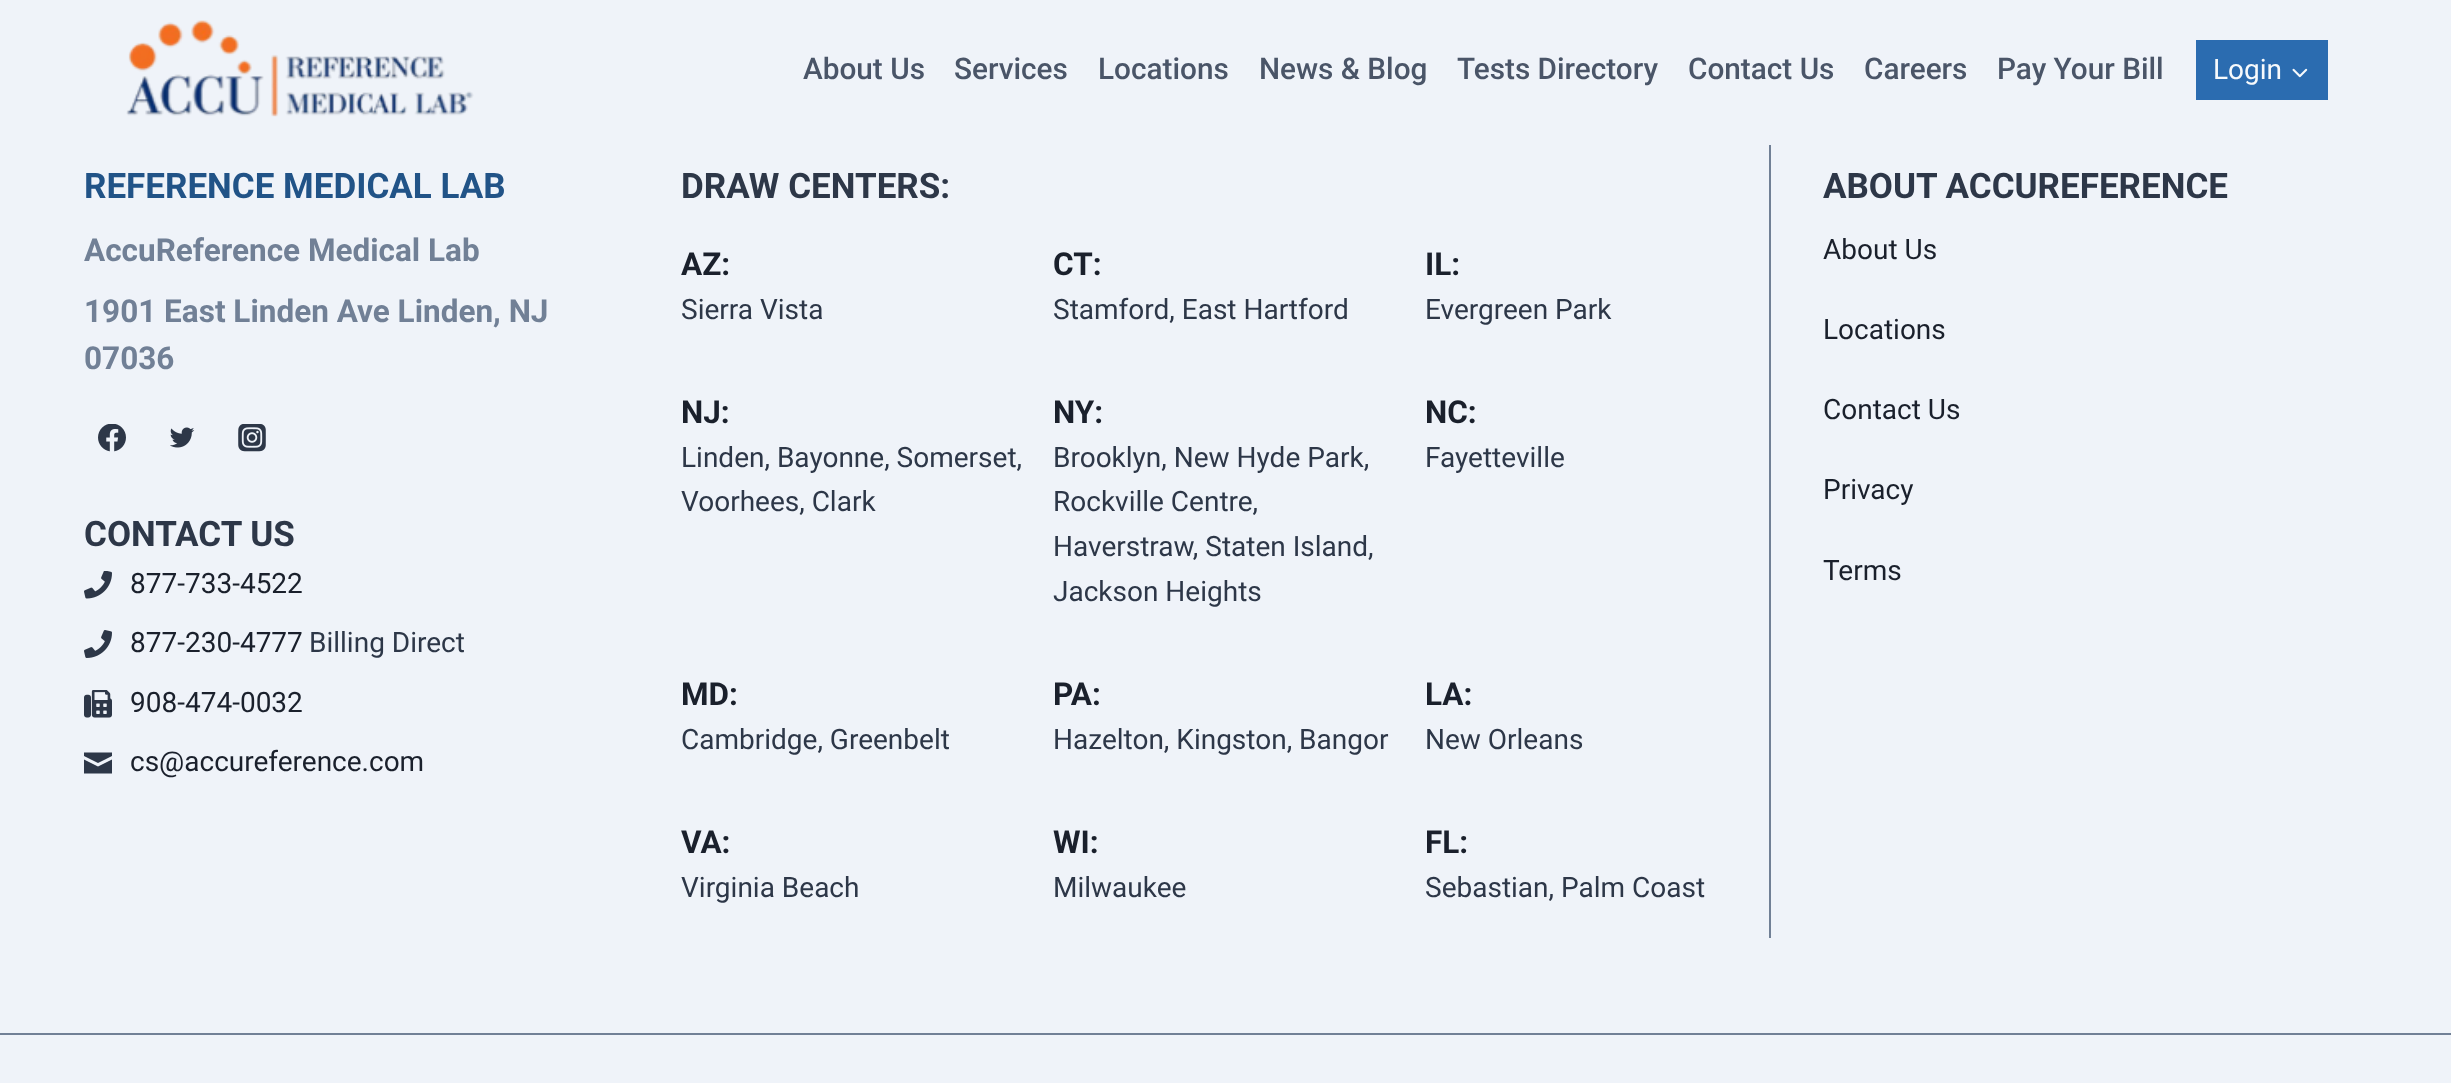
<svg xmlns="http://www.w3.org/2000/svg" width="2451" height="1083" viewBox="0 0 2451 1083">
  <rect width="100%" height="100%" fill="#eff3f9"/>
  <image x="126" y="20" width="348" height="97" href="img/1.png"/>
  <path d="M2196 40h132v60H2196z" fill="#2b6cb0"/>
  <image x="2292" y="68" width="16" height="10" href="img/2.png"/>
  <image x="98" y="424" width="28" height="28" href="img/3.png"/>
  <image x="170" y="427" width="25" height="21" href="img/4.png"/>
  <image x="238" y="424" width="28" height="28" href="img/5.png"/>
  <image x="84" y="571" width="28" height="28" href="img/6.png"/>
  <image x="84" y="630" width="28" height="28" href="img/7.png"/>
  <image x="84" y="690" width="28" height="28" href="img/8.png"/>
  <path d="M84 752.5V756L98 763L112 756V752.5ZM84 759.5V773.5H112V759.5L98 766.5Z" fill="#2d3748"/>
  <path d="M1769 145h2v793H1769z" fill="#718096"/>
  <path d="M0 1033h2451v2H0z" fill="#718096"/>
  <g font-family="Roboto" font-size="29.75" font-weight="500" fill="#4a5568">
    <text x="803" y="79">About Us</text>
    <text x="954" y="79">Services</text>
    <text x="1098" y="79">Locations</text>
    <text x="1259" y="79">News &amp; Blog</text>
    <text x="1457" y="79">Tests Directory</text>
    <text x="1688" y="79">Contact Us</text>
    <text x="1864" y="79">Careers</text>
    <text x="1997" y="79">Pay Your Bill</text>
  </g>
  <text x="2213" y="79" font-family="Roboto" font-size="28" fill="#f7fafc">Login</text>
  <text x="84" y="198" font-family="Roboto" font-size="35" font-weight="bold" fill="#215387">REFERENCE MEDICAL LAB</text>
  <g font-family="Roboto" font-size="31.5" font-weight="bold" fill="#718096">
    <text x="84" y="261">AccuReference Medical Lab</text>
    <text x="84" y="322">1901 East Linden Ave Linden, NJ</text>
    <text x="84" y="369">07036</text>
  </g>
  <text x="84" y="546" font-family="Roboto" font-size="35" font-weight="bold" fill="#2d3748">CONTACT US</text>
  <g font-family="Roboto" font-size="28" fill="#1a202c">
    <text x="130" y="593">877-733-4522</text>
    <text x="130" y="652">877-230-4777</text>
  </g>
  <text x="309" y="652" font-family="Roboto" font-size="28" fill="#2d3748">Billing Direct</text>
  <g font-family="Roboto" font-size="28" fill="#1a202c">
    <text x="130" y="712">908-474-0032</text>
    <text x="130" y="771">cs@accureference.com</text>
  </g>
  <text x="681" y="198" font-family="Roboto" font-size="35" font-weight="bold" fill="#2d3748">DRAW CENTERS:</text>
  <text x="681" y="275" font-family="Roboto" font-size="31.5" font-weight="bold" fill="#1a202c">AZ:</text>
  <text x="681" y="319" font-family="Roboto" font-size="28" fill="#2d3748">Sierra Vista</text>
  <text x="1053" y="275" font-family="Roboto" font-size="31.5" font-weight="bold" fill="#1a202c">CT:</text>
  <text x="1053" y="319" font-family="Roboto" font-size="28" fill="#2d3748">Stamford, East Hartford</text>
  <text x="1425" y="275" font-family="Roboto" font-size="31.5" font-weight="bold" fill="#1a202c">IL:</text>
  <text x="1425" y="319" font-family="Roboto" font-size="28" fill="#2d3748">Evergreen Park</text>
  <text x="681" y="423" font-family="Roboto" font-size="31.5" font-weight="bold" fill="#1a202c">NJ:</text>
  <g font-family="Roboto" font-size="28" fill="#2d3748">
    <text x="681" y="467">Linden, Bayonne, Somerset,</text>
    <text x="681" y="511">Voorhees, Clark</text>
  </g>
  <text x="1053" y="423" font-family="Roboto" font-size="31.5" font-weight="bold" fill="#1a202c">NY:</text>
  <g font-family="Roboto" font-size="28" fill="#2d3748">
    <text x="1053" y="467">Brooklyn, New Hyde Park,</text>
    <text x="1053" y="511">Rockville Centre,</text>
    <text x="1053" y="556">Haverstraw, Staten Island,</text>
    <text x="1053" y="601">Jackson Heights</text>
  </g>
  <text x="1425" y="423" font-family="Roboto" font-size="31.5" font-weight="bold" fill="#1a202c">NC:</text>
  <text x="1425" y="467" font-family="Roboto" font-size="28" fill="#2d3748">Fayetteville</text>
  <text x="681" y="705" font-family="Roboto" font-size="31.5" font-weight="bold" fill="#1a202c">MD:</text>
  <text x="681" y="749" font-family="Roboto" font-size="28" fill="#2d3748">Cambridge, Greenbelt</text>
  <text x="1053" y="705" font-family="Roboto" font-size="31.5" font-weight="bold" fill="#1a202c">PA:</text>
  <text x="1053" y="749" font-family="Roboto" font-size="28" fill="#2d3748">Hazelton, Kingston, Bangor</text>
  <text x="1425" y="705" font-family="Roboto" font-size="31.5" font-weight="bold" fill="#1a202c">LA:</text>
  <text x="1425" y="749" font-family="Roboto" font-size="28" fill="#2d3748">New Orleans</text>
  <text x="681" y="853" font-family="Roboto" font-size="31.5" font-weight="bold" fill="#1a202c">VA:</text>
  <text x="681" y="897" font-family="Roboto" font-size="28" fill="#2d3748">Virginia Beach</text>
  <text x="1053" y="853" font-family="Roboto" font-size="31.5" font-weight="bold" fill="#1a202c">WI:</text>
  <text x="1053" y="897" font-family="Roboto" font-size="28" fill="#2d3748">Milwaukee</text>
  <text x="1425" y="853" font-family="Roboto" font-size="31.5" font-weight="bold" fill="#1a202c">FL:</text>
  <text x="1425" y="897" font-family="Roboto" font-size="28" fill="#2d3748">Sebastian, Palm Coast</text>
  <text x="1823" y="198" font-family="Roboto" font-size="35" font-weight="bold" fill="#2d3748">ABOUT ACCUREFERENCE</text>
  <g font-family="Roboto" font-size="28" fill="#1a202c">
    <text x="1823" y="259">About Us</text>
    <text x="1823" y="339">Locations</text>
    <text x="1823" y="419">Contact Us</text>
    <text x="1823" y="499">Privacy</text>
    <text x="1823" y="580">Terms</text>
  </g>
</svg>
